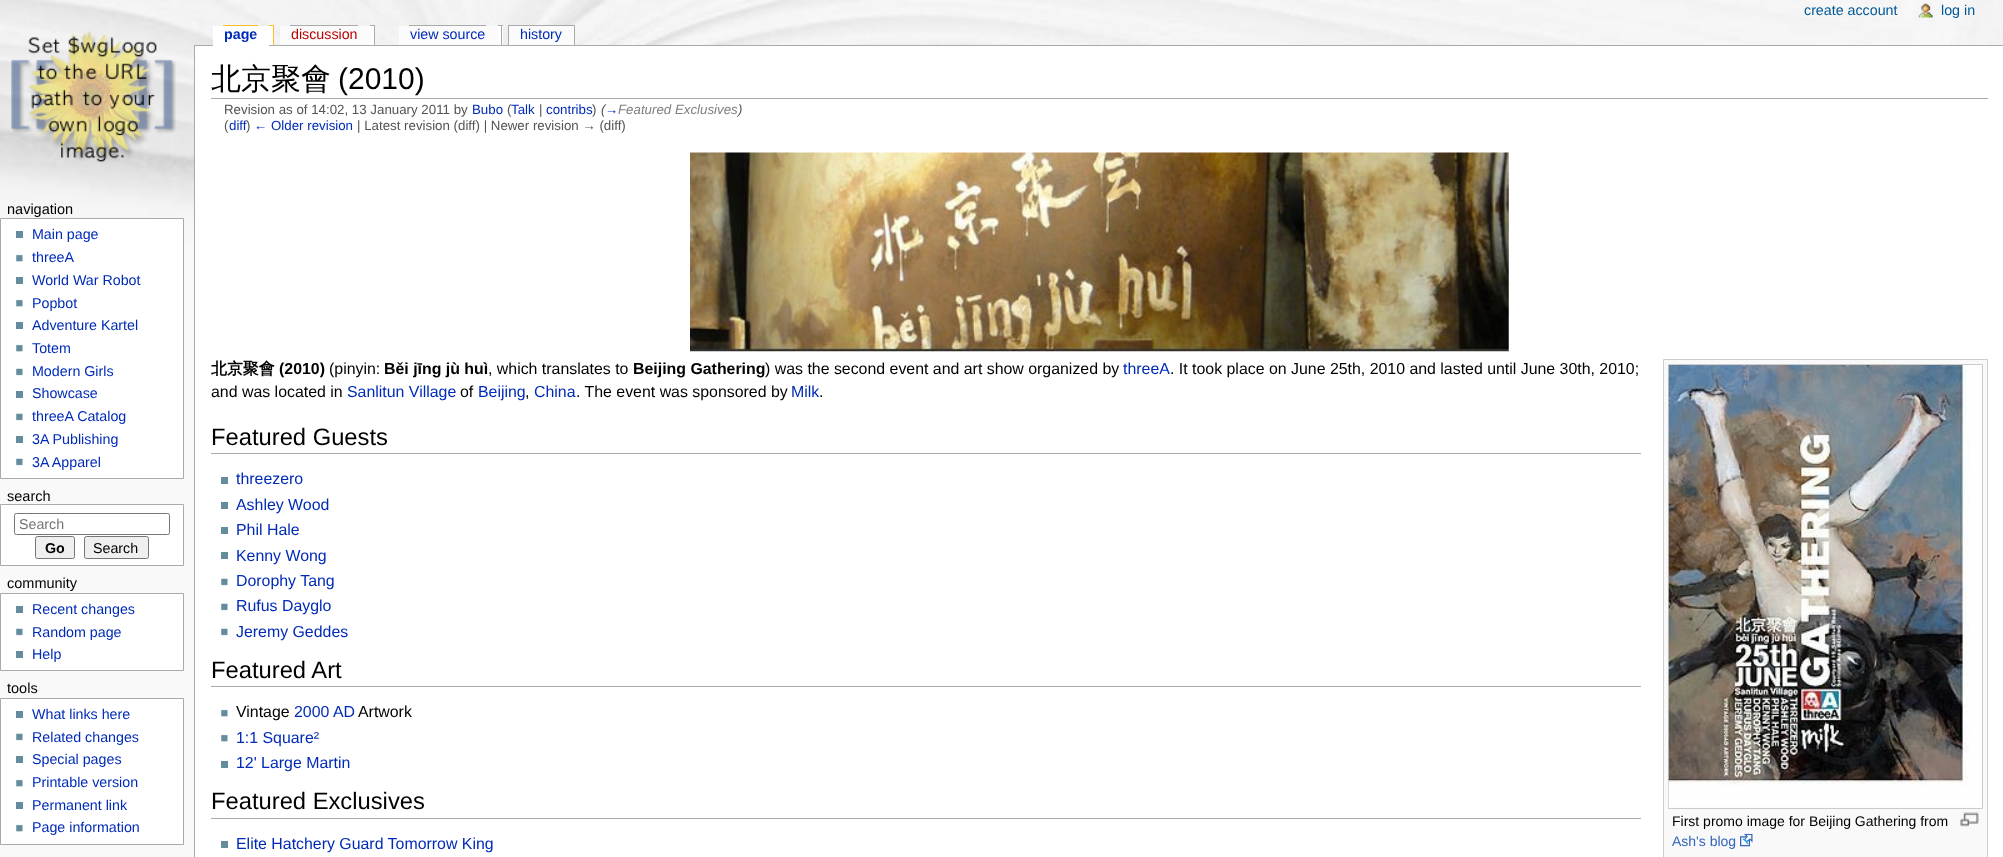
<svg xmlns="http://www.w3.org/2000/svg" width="2003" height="857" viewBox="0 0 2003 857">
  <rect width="100%" height="100%" fill="#f9f9f9"/>
  <image x="0" y="0" width="2003" height="243" href="img/1.png"/>
  <image x="1918" y="3" width="15" height="15" href="img/2.png"/>
  <image x="11" y="31" width="165" height="131" href="img/3.png"/>
  <path d="M223 25h35v1H223z" fill="#fabd23"/>
  <path d="M269 25h4v20H269z" fill="#fff"/>
  <path d="M269 25h5v1H269z" fill="#fabd23"/>
  <path d="M273 25h1v20H273z" fill="#fabd23"/>
  <path d="M194 45h1809v1H194z" fill="#aaa"/>
  <path d="M213 26h56v20H213z" fill="#fff"/>
  <path d="M290 25h68v1H290z" fill="#aaa"/>
  <path d="M370 25h4v20H370z" fill="#fff"/>
  <path d="M370 25h5v1H370z" fill="#aaa"/>
  <path d="M374 25h1v20H374z" fill="#aaa"/>
  <path d="M280 26h90v19H280z" fill="#fbfbfb"/>
  <path d="M409 25h77v1H409z" fill="#aaa"/>
  <path d="M498 25h5v20H498z" fill="#fff"/>
  <path d="M498 25h5v1H498z" fill="#aaa"/>
  <path d="M501 25h1v20H501z" fill="#aaa"/>
  <path d="M399 26h99v19H399z" fill="#fbfbfb"/>
  <path d="M508 25h67v1H508z" fill="#aaa"/>
  <path d="M574 25h1v20H574z" fill="#aaa"/>
  <path d="M508 25h1v20H508z" fill="#aaa"/>
  <path d="M509 26h65v19H509z" fill="#fbfbfb"/>
  <path d="M0.5 218.5h183v260H0.5z" fill="#fff" stroke="#aaa"/>
  <path d="M16 231h7v7H16z" fill="#638c9c"/>
  <image x="16" y="254" width="7" height="8" href="img/4.png"/>
  <path d="M16 277h7v7H16z" fill="#638c9c"/>
  <image x="16" y="299" width="7" height="8" href="img/4.png"/>
  <path d="M16 322h7v7H16z" fill="#638c9c"/>
  <image x="16" y="344" width="7" height="8" href="img/4.png"/>
  <image x="16" y="368" width="7" height="8" href="img/5.png"/>
  <path d="M16 391h7v7H16z" fill="#638c9c"/>
  <image x="16" y="413" width="7" height="8" href="img/5.png"/>
  <path d="M16 436h7v7H16z" fill="#638c9c"/>
  <image x="16" y="458" width="7" height="8" href="img/5.png"/>
  <path d="M0.5 504.5h183v61H0.5z" fill="#fff" stroke="#aaa"/>
  <rect x="14.5" y="513.5" width="155" height="21" rx="2" fill="none" stroke="#767676"/>
  <rect x="35.5" y="536.5" width="39" height="22" rx="2" fill="#efefef" stroke="#767676"/>
  <rect x="84.5" y="536.5" width="64" height="22" rx="2" fill="#efefef" stroke="#767676"/>
  <path d="M0.5 593.5h183v77H0.5z" fill="#fff" stroke="#aaa"/>
  <path d="M16 606h7v7H16z" fill="#638c9c"/>
  <image x="16" y="628" width="7" height="8" href="img/5.png"/>
  <path d="M16 651h7v7H16z" fill="#638c9c"/>
  <path d="M0.5 698.5h183v146H0.5z" fill="#fff" stroke="#aaa"/>
  <path d="M16 711h7v7H16z" fill="#638c9c"/>
  <image x="16" y="733" width="7" height="8" href="img/5.png"/>
  <path d="M16 756h7v7H16z" fill="#638c9c"/>
  <image x="16" y="779" width="7" height="8" href="img/4.png"/>
  <path d="M16 802h7v7H16z" fill="#638c9c"/>
  <image x="16" y="824" width="7" height="8" href="img/4.png"/>
  <path d="M195 46h1808v811H195z" fill="#fff"/>
  <path d="M194 45h1v812H194z" fill="#aaa"/>
  <path d="M211 98h1777v1H211z" fill="#aaa"/>
  <image x="690" y="152" width="819" height="200" href="img/6.png"/>
  <path d="M211 453h1430v1H211z" fill="#aaa"/>
  <path d="M221 477h7v7H221z" fill="#638c9c"/>
  <path d="M221 502h7v7H221z" fill="#638c9c"/>
  <path d="M221 527h7v7H221z" fill="#638c9c"/>
  <path d="M221 552h7v7H221z" fill="#638c9c"/>
  <image x="221" y="578" width="7" height="8" href="img/5.png"/>
  <image x="221" y="603" width="7" height="8" href="img/5.png"/>
  <image x="221" y="628" width="7" height="8" href="img/5.png"/>
  <path d="M211 686h1430v1H211z" fill="#aaa"/>
  <image x="221" y="709" width="7" height="8" href="img/4.png"/>
  <image x="221" y="734" width="7" height="8" href="img/4.png"/>
  <path d="M221 761h7v7H221z" fill="#638c9c"/>
  <path d="M211 818h1430v1H211z" fill="#aaa"/>
  <path d="M221 841h7v7H221z" fill="#638c9c"/>
  <path d="M1663.5 359.5h324v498H1663.5z" fill="#f9f9f9" stroke="#ccc"/>
  <path d="M1668.5 364.5h314v444H1668.5z" fill="none" stroke="#ccc"/>
  <image x="1668" y="365" width="313" height="443" href="img/7.png"/>
  <image x="1960" y="812" width="19" height="15" href="img/8.png"/>
  <image x="1740" y="834" width="13" height="13" href="img/9.png"/>
  <g font-family="Liberation Sans" font-size="14.25" fill="#005896">
    <text x="1804" y="15">create account</text>
    <text x="1941" y="15">log in</text>
  </g>
  <text x="224" y="39" font-family="Liberation Sans" font-size="14.25" font-weight="bold" fill="#002bb8">page</text>
  <text x="291" y="39" font-family="Liberation Sans" font-size="14.25" fill="#ba0000">discussion</text>
  <g font-family="Liberation Sans" font-size="14.25" fill="#002bb8">
    <text x="410" y="39">view source</text>
    <text x="520" y="39">history</text>
  </g>
  <text x="7" y="214" font-family="Liberation Sans" font-size="14.5" fill="#000">navigation</text>
  <g font-family="Liberation Sans" font-size="14.25" fill="#002bb8">
    <text x="32" y="239">Main page</text>
    <text x="32" y="262">threeA</text>
    <text x="32" y="285">World War Robot</text>
    <text x="32" y="308">Popbot</text>
    <text x="32" y="330">Adventure Kartel</text>
    <text x="32" y="353">Totem</text>
    <text x="32" y="376">Modern Girls</text>
    <text x="32" y="398">Showcase</text>
    <text x="32" y="421">threeA Catalog</text>
    <text x="32" y="444">3A Publishing</text>
    <text x="32" y="467">3A Apparel</text>
  </g>
  <text x="7" y="501" font-family="Liberation Sans" font-size="14.5" fill="#000">search</text>
  <text x="19" y="529" font-family="Liberation Sans" font-size="14.25" fill="#757575">Search</text>
  <text x="45" y="553" font-family="Liberation Sans" font-size="14.25" font-weight="bold" fill="#000">Go</text>
  <text x="93" y="553" font-family="Liberation Sans" font-size="14.25" fill="#000">Search</text>
  <text x="7" y="588" font-family="Liberation Sans" font-size="14.5" fill="#000">community</text>
  <g font-family="Liberation Sans" font-size="14.25" fill="#002bb8">
    <text x="32" y="614">Recent changes</text>
    <text x="32" y="637">Random page</text>
    <text x="32" y="659">Help</text>
  </g>
  <text x="7" y="693" font-family="Liberation Sans" font-size="14.5" fill="#000">tools</text>
  <g font-family="Liberation Sans" font-size="14.25" fill="#002bb8">
    <text x="32" y="719">What links here</text>
    <text x="32" y="742">Related changes</text>
    <text x="32" y="764">Special pages</text>
    <text x="32" y="787">Printable version</text>
    <text x="32" y="810">Permanent link</text>
    <text x="32" y="832">Page information</text>
  </g>
  <text x="211" y="89" font-family="WenQuanYi Zen Hei" font-size="30" font-weight="500" fill="#000">北京聚會</text>
  <text x="338" y="89" font-family="Liberation Sans" font-size="30" fill="#000">(2010)</text>
  <text x="224" y="114" font-family="Liberation Sans" font-size="13.3" fill="#545454">Revision as of 14:02, 13 January 2011 by</text>
  <text x="472" y="114" font-family="Liberation Sans" font-size="13.3" fill="#002bb8">Bubo</text>
  <text x="507" y="114" font-family="Liberation Sans" font-size="13.3" fill="#545454">(</text>
  <text x="511" y="114" font-family="Liberation Sans" font-size="13.3" fill="#002bb8">Talk</text>
  <text x="539" y="114" font-family="Liberation Sans" font-size="13.3" fill="#545454">|</text>
  <text x="546" y="114" font-family="Liberation Sans" font-size="13.3" fill="#002bb8">contribs</text>
  <text x="592" y="114" font-family="Liberation Sans" font-size="13.3" fill="#545454">)</text>
  <text x="601" y="114" font-family="Liberation Sans" font-size="13.3" font-style="italic" fill="#545454">(</text>
  <text x="605" y="114" font-family="Liberation Sans" font-size="13.3" font-style="italic" fill="#002bb8">→</text>
  <text x="618" y="114" font-family="Liberation Sans" font-size="13.3" font-style="italic" fill="#808080">Featured Exclusives</text>
  <text x="738" y="114" font-family="Liberation Sans" font-size="13.3" font-style="italic" fill="#545454">)</text>
  <text x="224" y="130" font-family="Liberation Sans" font-size="13.3" fill="#545454">(</text>
  <text x="229" y="130" font-family="Liberation Sans" font-size="13.3" fill="#002bb8">diff</text>
  <text x="246" y="130" font-family="Liberation Sans" font-size="13.3" fill="#545454">)</text>
  <text x="254" y="130" font-family="Liberation Sans" font-size="13.3" fill="#002bb8">← Older revision</text>
  <text x="357" y="130" font-family="Liberation Sans" font-size="13.3" fill="#545454">| Latest revision (diff) | Newer revision → (diff)</text>
  <text x="211" y="374" font-family="WenQuanYi Zen Hei" font-size="15.9" font-weight="bold" fill="#000">北京聚會</text>
  <text x="279" y="374" font-family="Liberation Sans" font-size="15.9" font-weight="bold" fill="#000">(2010)</text>
  <text x="329" y="374" font-family="Liberation Sans" font-size="15.9" fill="#000">(pinyin:</text>
  <text x="384" y="374" font-family="Liberation Sans" font-size="15.9" font-weight="bold" fill="#000">Běi jīng jù huì</text>
  <text x="488" y="374" font-family="Liberation Sans" font-size="15.9" fill="#000">, which translates to</text>
  <text x="633" y="374" font-family="Liberation Sans" font-size="15.9" font-weight="bold" fill="#000">Beijing Gathering</text>
  <text x="765" y="374" font-family="Liberation Sans" font-size="15.9" fill="#000">) was the second event and art show organized by</text>
  <text x="1123" y="374" font-family="Liberation Sans" font-size="15.9" fill="#002bb8">threeA</text>
  <g font-family="Liberation Sans" font-size="15.9" fill="#000">
    <text x="1170" y="374">. It took place on June 25th, 2010 and lasted until June 30th, 2010;</text>
    <text x="211" y="397">and was located in</text>
  </g>
  <text x="347" y="397" font-family="Liberation Sans" font-size="15.9" fill="#002bb8">Sanlitun Village</text>
  <text x="460" y="397" font-family="Liberation Sans" font-size="15.9" fill="#000">of</text>
  <text x="478" y="397" font-family="Liberation Sans" font-size="15.9" fill="#002bb8">Beijing</text>
  <text x="525" y="397" font-family="Liberation Sans" font-size="15.9" fill="#000">,</text>
  <text x="534" y="397" font-family="Liberation Sans" font-size="15.9" fill="#002bb8">China</text>
  <text x="576" y="397" font-family="Liberation Sans" font-size="15.9" fill="#000">. The event was sponsored by</text>
  <text x="791" y="397" font-family="Liberation Sans" font-size="15.9" fill="#002bb8">Milk</text>
  <text x="819" y="397" font-family="Liberation Sans" font-size="15.9" fill="#000">.</text>
  <text x="211" y="445" font-family="Liberation Sans" font-size="23.75" fill="#000">Featured Guests</text>
  <g font-family="Liberation Sans" font-size="15.9" fill="#002bb8">
    <text x="236" y="484">threezero</text>
    <text x="236" y="510">Ashley Wood</text>
    <text x="236" y="535">Phil Hale</text>
    <text x="236" y="561">Kenny Wong</text>
    <text x="236" y="586">Dorophy Tang</text>
    <text x="236" y="611">Rufus Dayglo</text>
    <text x="236" y="637">Jeremy Geddes</text>
  </g>
  <text x="211" y="678" font-family="Liberation Sans" font-size="23.75" fill="#000">Featured Art</text>
  <text x="236" y="717" font-family="Liberation Sans" font-size="15.9" fill="#000">Vintage</text>
  <text x="294" y="717" font-family="Liberation Sans" font-size="15.9" fill="#002bb8">2000 AD</text>
  <text x="358" y="717" font-family="Liberation Sans" font-size="15.9" fill="#000">Artwork</text>
  <g font-family="Liberation Sans" font-size="15.9" fill="#002bb8">
    <text x="236" y="743">1:1 Square²</text>
    <text x="236" y="768">12' Large Martin</text>
  </g>
  <text x="211" y="809" font-family="Liberation Sans" font-size="23.75" fill="#000">Featured Exclusives</text>
  <text x="236" y="849" font-family="Liberation Sans" font-size="15.9" fill="#002bb8">Elite Hatchery Guard Tomorrow King</text>
  <text x="1672" y="826" font-family="Liberation Sans" font-size="14" fill="#000">First promo image for Beijing Gathering from</text>
  <text x="1672" y="846" font-family="Liberation Sans" font-size="14" fill="#36b">Ash's blog</text>
</svg>
